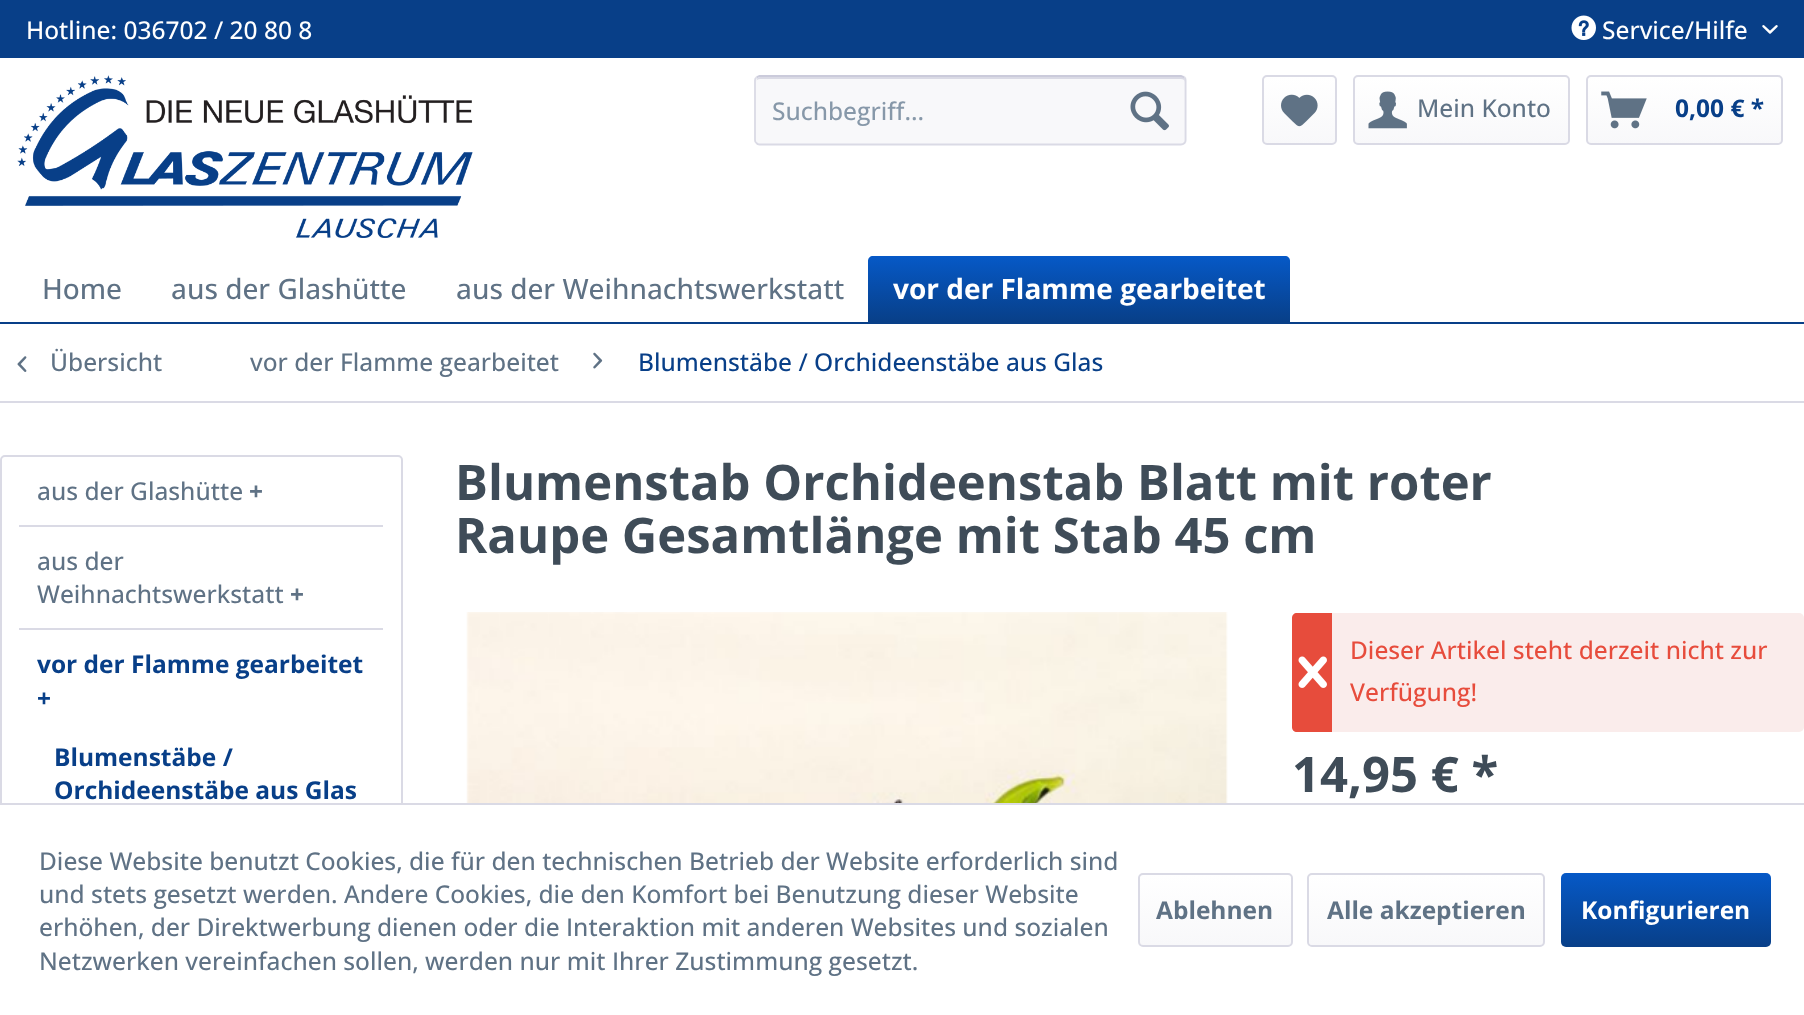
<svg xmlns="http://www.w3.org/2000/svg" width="1804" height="1015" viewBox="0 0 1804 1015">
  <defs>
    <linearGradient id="g1" gradientUnits="userSpaceOnUse" x1="1299" y1="77" x2="1299" y2="144"><stop offset="0" stop-color="#fff"/><stop offset="1" stop-color="#f8f8fa"/></linearGradient>
    <linearGradient id="g2" gradientUnits="userSpaceOnUse" x1="1461" y1="77" x2="1461" y2="144"><stop offset="0" stop-color="#fff"/><stop offset="1" stop-color="#f8f8fa"/></linearGradient>
    <linearGradient id="g3" gradientUnits="userSpaceOnUse" x1="1684" y1="77" x2="1684" y2="144"><stop offset="0" stop-color="#fff"/><stop offset="1" stop-color="#f8f8fa"/></linearGradient>
    <linearGradient id="g4" gradientUnits="userSpaceOnUse" x1="1079" y1="256" x2="1079" y2="322"><stop offset="0" stop-color="#0659c7"/><stop offset="1" stop-color="#083f88"/></linearGradient>
    <linearGradient id="g5" gradientUnits="userSpaceOnUse" x1="1215" y1="875" x2="1215" y2="945"><stop offset="0" stop-color="#fff"/><stop offset="1" stop-color="#f8f8fa"/></linearGradient>
    <linearGradient id="g6" gradientUnits="userSpaceOnUse" x1="1426" y1="875" x2="1426" y2="945"><stop offset="0" stop-color="#fff"/><stop offset="1" stop-color="#f8f8fa"/></linearGradient>
    <linearGradient id="g7" gradientUnits="userSpaceOnUse" x1="1666" y1="873" x2="1666" y2="947"><stop offset="0" stop-color="#0659c7"/><stop offset="1" stop-color="#083f88"/></linearGradient>
  </defs>
  <rect width="100%" height="100%" fill="#fff"/>
  <path d="M0 0h1804v58H0z" fill="#083f88"/>
  <image x="1571" y="15" width="25" height="25" href="img/1.png"/>
  <image x="1762" y="25" width="16" height="9" href="img/2.png"/>
  <image x="17" y="75" width="456" height="163" href="img/3.png"/>
  <rect x="754" y="75" width="433" height="70" rx="5" fill="#f8f8fa"/>
  <path d="M760 79H1181C1183 79 1185 80 1185 82C1185 79 1184 77 1181 77H760C759 77 757 78 757 79L756 82C756 80 758 79 760 79Z" fill="#dadae5"/>
  <path d="M756.5 77.5L759.5 76H1181L1184.5 77.5" fill="none" stroke="#cbcbdb" stroke-width="1.8"/>
  <path d="M1184.5 77.5C1185 78 1185.5 79.5 1185.5 80.5V140C1185.5 141 1185 142.5 1184.5 143C1183.5 144 1182.5 144.5 1181 144.5H759.5C758.5 144.5 757 144 756.5 143C755.5 142.5 755 141 755 140V80.5C755 79.5 755.5 78 756.5 77.5" fill="none" stroke="#dadae5" stroke-width="1.8"/>
  <image x="1130" y="91" width="39" height="40" href="img/4.png"/>
  <rect x="1264" y="77" width="71" height="67" rx="4" fill="url(#g1)"/>
  <rect x="1263" y="76" width="73" height="68" rx="4" fill="none" stroke="#dadae5" stroke-width="2"/>
  <image x="1281" y="94" width="37" height="33" href="img/5.png"/>
  <rect x="1355" y="77" width="213" height="67" rx="4" fill="url(#g2)"/>
  <rect x="1354" y="76" width="215" height="68" rx="4" fill="none" stroke="#dadae5" stroke-width="2"/>
  <image x="1368" y="91" width="39" height="38" href="img/6.png"/>
  <rect x="1587" y="77" width="195" height="67" rx="4" fill="url(#g3)"/>
  <rect x="1587" y="76" width="195" height="68" rx="4" fill="none" stroke="#dadae5" stroke-width="2"/>
  <image x="1601" y="91" width="46" height="38" href="img/7.png"/>
  <path d="M0 322h1804v2H0z" fill="#083f88"/>
  <path d="M873 256H1285C1288 256 1290 258 1290 261V322H868V261C868 258 870 256 873 256Z" fill="url(#g4)"/>
  <path d="M0 401h1804v2H0z" fill="#dadae5"/>
  <image x="17" y="356" width="10" height="16" href="img/8.png"/>
  <image x="593" y="352" width="10" height="17" href="img/9.png"/>
  <rect x="1" y="456" width="401" height="479" rx="4" fill="none" stroke="#dadae5" stroke-width="2"/>
  <path d="M19 525h364v2H19z" fill="#dadae5"/>
  <path d="M19 628h364v2H19z" fill="#dadae5"/>
  <image x="466" y="612" width="762" height="191" href="img/10.png"/>
  <rect x="1292" y="613" width="512" height="119" rx="5" fill="#faeceb"/>
  <path d="M1297 613H1332V732H1297C1294 732 1292 730 1292 727V618C1292 615 1294 613 1297 613Z" fill="#e74c3c"/>
  <image x="1298" y="656" width="29" height="32" href="img/11.png"/>
  <path d="M0 805h403v131H0z" fill="#fff"/>
  <path d="M0 803h1804v2H0z" fill="#dadae5"/>
  <rect x="1139" y="875" width="153" height="70" rx="4" fill="url(#g5)"/>
  <rect x="1139" y="874" width="153" height="72" rx="4" fill="none" stroke="#dadae5" stroke-width="2"/>
  <rect x="1309" y="875" width="235" height="70" rx="4" fill="url(#g6)"/>
  <rect x="1308" y="874" width="236" height="72" rx="4" fill="none" stroke="#dadae5" stroke-width="2"/>
  <rect x="1561" y="873" width="210" height="74" rx="5" fill="url(#g7)"/>
  <g font-family="Open Sans" font-size="24.5" font-weight="500" fill="#fff">
    <text x="26" y="39">Hotline: 036702 / 20 80 8</text>
    <text x="1602" y="39">Service/Hilfe</text>
  </g>
  <text x="772" y="120" font-family="Open Sans" font-size="24.5" font-weight="500" fill="#8798a9">Suchbegriff...</text>
  <text x="1417" y="117" font-family="Open Sans" font-size="24.5" font-weight="500" fill="#5f7285">Mein Konto</text>
  <text x="1675" y="117" font-family="Open Sans" font-size="24.5" font-weight="bold" fill="#083f88">0,00 € *</text>
  <g font-family="Open Sans" font-size="28" font-weight="500" fill="#5f7285">
    <text x="42" y="299">Home</text>
    <text x="171" y="299">aus der Glashütte</text>
    <text x="456" y="299">aus der Weihnachtswerkstatt</text>
  </g>
  <text x="893" y="299" font-family="Open Sans" font-size="28" font-weight="bold" fill="#fff">vor der Flamme gearbeitet</text>
  <g font-family="Open Sans" font-size="24.5" font-weight="500" fill="#5f7285">
    <text x="50" y="371">Übersicht</text>
    <text x="250" y="371">vor der Flamme gearbeitet</text>
  </g>
  <text x="638" y="371" font-family="Open Sans" font-size="24.5" font-weight="500" fill="#083f88">Blumenstäbe / Orchideenstäbe aus Glas</text>
  <text x="37" y="500" font-family="Open Sans" font-size="24.5" font-weight="500" fill="#5f7285">aus der Glashütte</text>
  <text x="249" y="500" font-family="Open Sans" font-size="24.5" font-weight="bold" fill="#5f7285">+</text>
  <g font-family="Open Sans" font-size="24.5" font-weight="500" fill="#5f7285">
    <text x="37" y="570">aus der</text>
    <text x="37" y="603">Weihnachtswerkstatt</text>
  </g>
  <text x="290" y="603" font-family="Open Sans" font-size="24.5" font-weight="bold" fill="#5f7285">+</text>
  <g font-family="Open Sans" font-size="24.5" font-weight="bold" fill="#083f88">
    <text x="37" y="673">vor der Flamme gearbeitet</text>
    <text x="37" y="707">+</text>
    <text x="54" y="766">Blumenstäbe /</text>
    <text x="54" y="799">Orchideenstäbe aus Glas</text>
  </g>
  <g font-family="Open Sans" font-size="49" font-weight="bold" fill="#3f4c58">
    <text x="455" y="500">Blumenstab Orchideenstab Blatt mit roter</text>
    <text x="455" y="553">Raupe Gesamtlänge mit Stab 45 cm</text>
  </g>
  <g font-family="Open Sans" font-size="24.5" font-weight="500" fill="#e74c3c">
    <text x="1350" y="659">Dieser Artikel steht derzeit nicht zur</text>
    <text x="1350" y="701">Verfügung!</text>
  </g>
  <text x="1292" y="792" font-family="Open Sans" font-size="49" font-weight="bold" fill="#3f4c58">14,95 € *</text>
  <g font-family="Open Sans" font-size="24.5" font-weight="500" fill="#5f7285">
    <text x="39" y="870">Diese Website benutzt Cookies, die für den technischen Betrieb der Website erforderlich sind</text>
    <text x="39" y="903">und stets gesetzt werden. Andere Cookies, die den Komfort bei Benutzung dieser Website</text>
    <text x="39" y="936">erhöhen, der Direktwerbung dienen oder die Interaktion mit anderen Websites und sozialen</text>
    <text x="39" y="970">Netzwerken vereinfachen sollen, werden nur mit Ihrer Zustimmung gesetzt.</text>
  </g>
  <g font-family="Open Sans" font-size="24.5" font-weight="bold" fill="#5f7285">
    <text x="1156" y="919">Ablehnen</text>
    <text x="1327" y="919">Alle akzeptieren</text>
  </g>
  <text x="1581" y="919" font-family="Open Sans" font-size="24.5" font-weight="bold" fill="#fff">Konfigurieren</text>
</svg>
